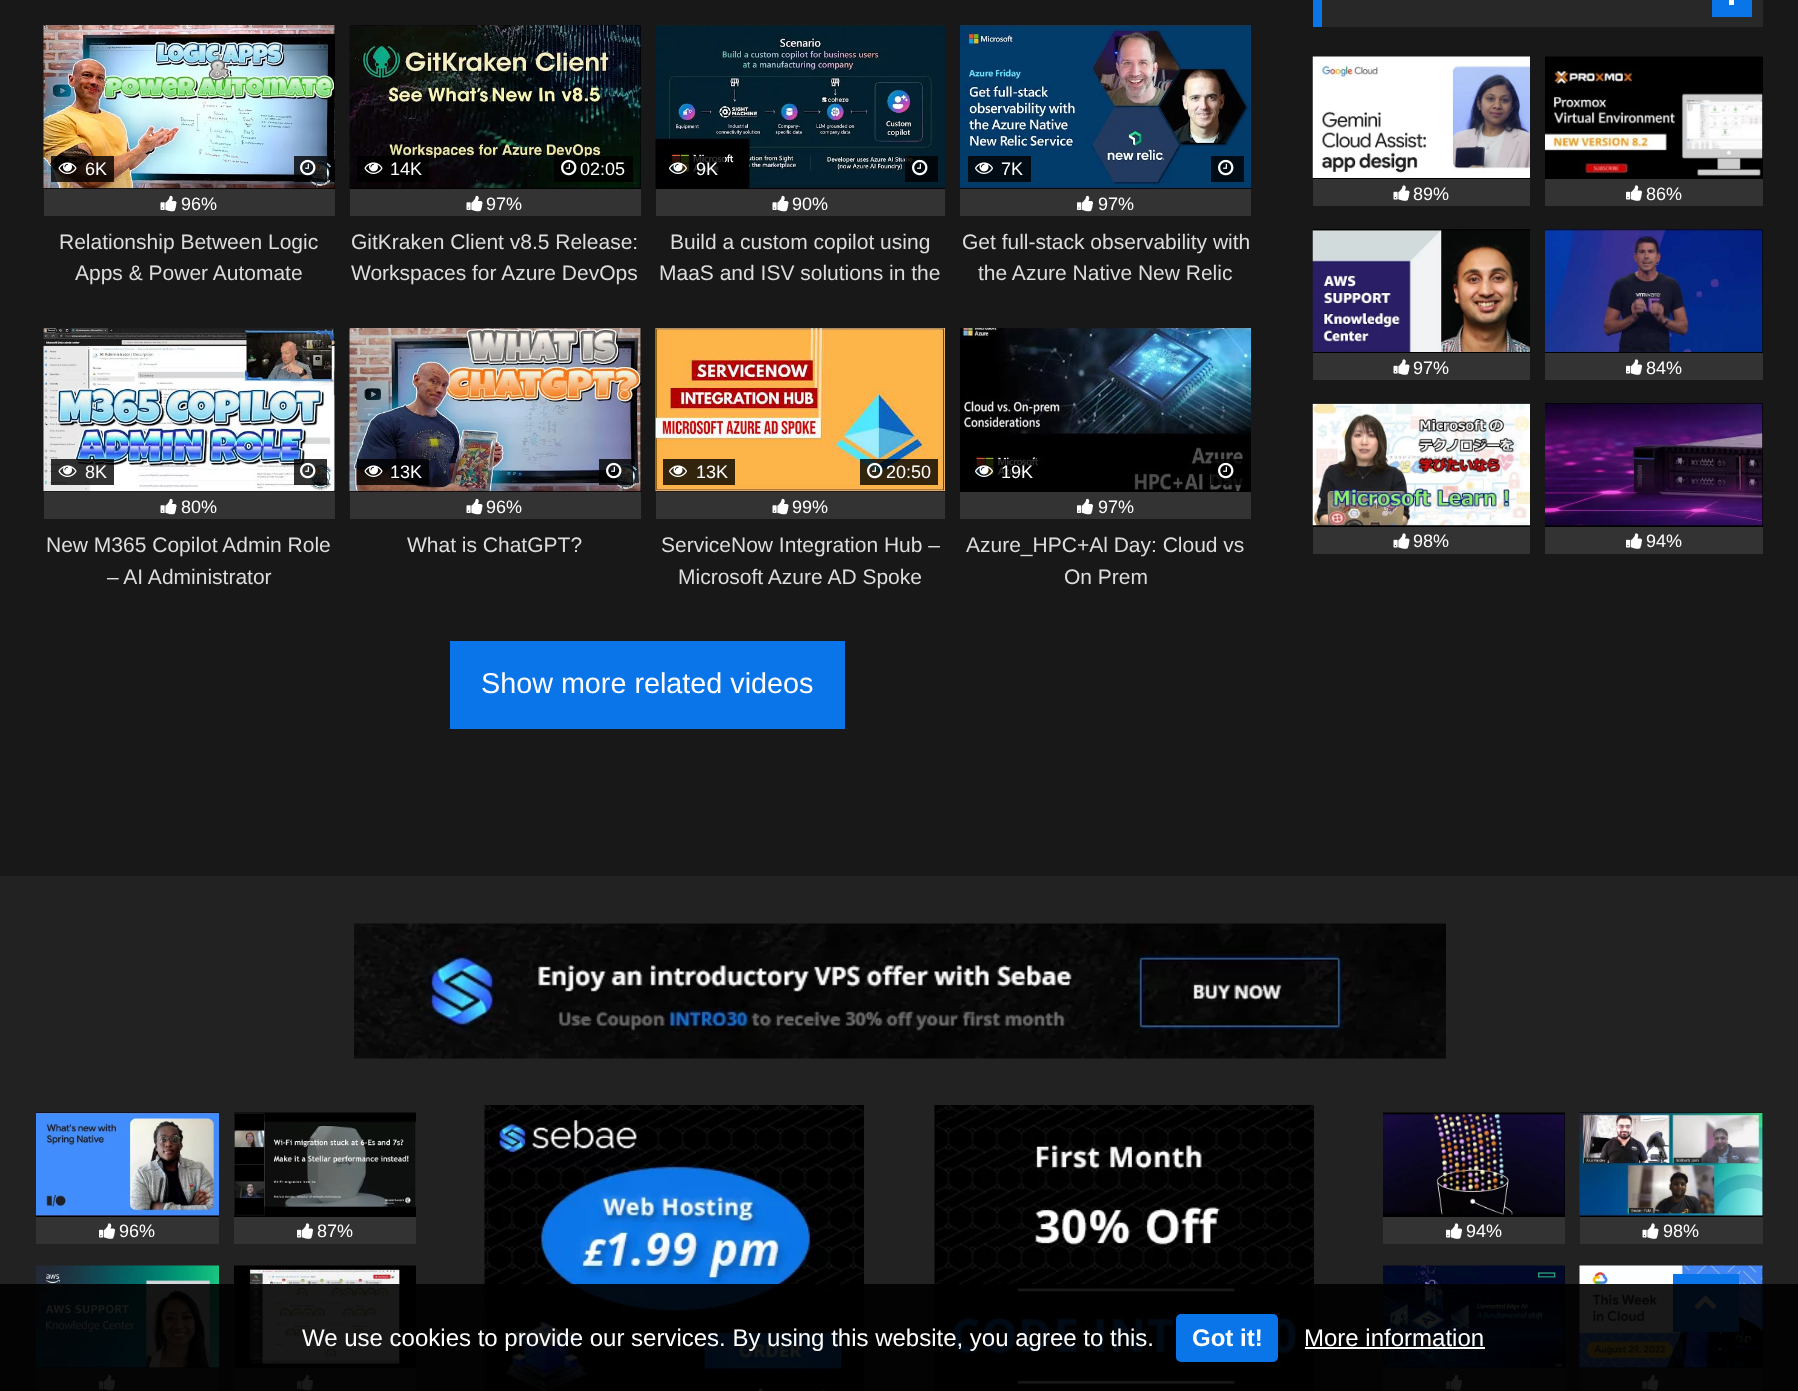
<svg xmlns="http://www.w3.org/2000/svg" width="1798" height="1391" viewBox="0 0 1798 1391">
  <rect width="100%" height="100%" fill="#181818"/>
  <path d="M44 26h291v163H44z" fill="#000"/>
  <image x="43" y="25" width="292" height="164" href="img/1.png"/>
  <path d="M51 156h63v26H51z" fill="#000000cc"/>
  <image x="58" y="162" width="19" height="12" href="img/2.png"/>
  <path d="M294 156h33v26H294z" fill="#000000cc"/>
  <image x="300" y="159" width="16" height="17" href="img/3.png"/>
  <path d="M44 189h291v27H44z" fill="#333"/>
  <image x="160" y="195" width="17" height="17" href="img/4.png"/>
  <path d="M350 26h291v163H350z" fill="#000"/>
  <image x="349" y="25" width="292" height="164" href="img/5.png"/>
  <path d="M357 156h72v26H357z" fill="#000000cc"/>
  <image x="364" y="162" width="19" height="12" href="img/6.png"/>
  <path d="M554 156h79v26H554z" fill="#000000cc"/>
  <image x="561" y="159" width="16" height="17" href="img/7.png"/>
  <path d="M350 189h291v27H350z" fill="#333"/>
  <image x="466" y="195" width="17" height="17" href="img/4.png"/>
  <path d="M656 188h289v1H656z" fill="#000"/>
  <image x="655" y="25" width="290" height="164" href="img/8.png"/>
  <path d="M668 156h57v17H668z" fill="#000000cc"/>
  <image x="669" y="162" width="18" height="12" href="img/9.png"/>
  <path d="M905 156h33v26H905z" fill="#000000cc"/>
  <image x="912" y="159" width="16" height="17" href="img/10.png"/>
  <path d="M656 189h289v27H656z" fill="#333"/>
  <image x="772" y="195" width="17" height="17" href="img/4.png"/>
  <path d="M960 188h291v1H960z" fill="#000"/>
  <image x="960" y="25" width="291" height="164" href="img/11.png"/>
  <path d="M968 156h63v26H968z" fill="#000c15"/>
  <image x="975" y="162" width="18" height="12" href="img/12.png"/>
  <path d="M1211 156h33v26H1211z" fill="#000c15"/>
  <image x="1218" y="159" width="16" height="17" href="img/13.png"/>
  <path d="M960 189h291v27H960z" fill="#333"/>
  <image x="1077" y="195" width="16" height="17" href="img/14.png"/>
  <path d="M44 329h291v163H44z" fill="#000"/>
  <image x="43" y="328" width="292" height="164" href="img/15.png"/>
  <path d="M51 459h63v26H51z" fill="#000000cc"/>
  <image x="58" y="465" width="19" height="12" href="img/16.png"/>
  <path d="M294 459h33v26H294z" fill="#000000cc"/>
  <image x="300" y="462" width="16" height="17" href="img/17.png"/>
  <path d="M44 492h291v27H44z" fill="#333"/>
  <image x="160" y="498" width="17" height="17" href="img/4.png"/>
  <path d="M350 329h291v163H350z" fill="#000"/>
  <image x="349" y="328" width="292" height="164" href="img/18.png"/>
  <path d="M357 459h72v26H357z" fill="#000000cc"/>
  <image x="364" y="465" width="19" height="12" href="img/19.png"/>
  <path d="M599 459h34v26H599z" fill="#000000cc"/>
  <image x="606" y="462" width="16" height="17" href="img/20.png"/>
  <path d="M350 492h291v27H350z" fill="#333"/>
  <image x="466" y="498" width="17" height="17" href="img/4.png"/>
  <path d="M656 491h289v1H656z" fill="#000"/>
  <image x="655" y="328" width="290" height="164" href="img/21.png"/>
  <path d="M663 459h72v26H663z" fill="#000000cc"/>
  <image x="669" y="465" width="18" height="12" href="img/22.png"/>
  <path d="M860 459h78v26H860z" fill="#000000cc"/>
  <image x="867" y="462" width="16" height="17" href="img/23.png"/>
  <path d="M656 492h289v27H656z" fill="#333"/>
  <image x="772" y="498" width="17" height="17" href="img/4.png"/>
  <path d="M960 491h291v1H960z" fill="#000"/>
  <image x="960" y="328" width="291" height="164" href="img/24.png"/>
  <path d="M974 459h66v17H974z" fill="#000000cc"/>
  <image x="975" y="465" width="18" height="12" href="img/25.png"/>
  <path d="M1211 459h33v26H1211z" fill="#000000cc"/>
  <image x="1218" y="462" width="16" height="17" href="img/26.png"/>
  <path d="M960 492h291v27H960z" fill="#333"/>
  <image x="1077" y="498" width="16" height="17" href="img/14.png"/>
  <path d="M450 641h395v88H450z" fill="#0a75e8"/>
  <path d="M1322 0h441v27H1322z" fill="#282828"/>
  <path d="M1313 0h9v27H1313z" fill="#0a75e8"/>
  <path d="M1712 0h40v17H1712z" fill="#0a75e8"/>
  <path d="M1729 0h5v5H1729z" fill="#fff"/>
  <path d="M1313 178h217v1H1313z" fill="#000"/>
  <image x="1312" y="56" width="218" height="122" href="img/27.png"/>
  <path d="M1313 179h217v27H1313z" fill="#333"/>
  <image x="1393" y="185" width="17" height="16" href="img/28.png"/>
  <path d="M1545 57h218v122H1545z" fill="#000"/>
  <image x="1545" y="56" width="218" height="120" href="img/29.png"/>
  <path d="M1545 179h218v27H1545z" fill="#333"/>
  <image x="1626" y="185" width="17" height="16" href="img/30.png"/>
  <path d="M1313 352h217v1H1313z" fill="#000"/>
  <image x="1312" y="229" width="218" height="123" href="img/31.png"/>
  <path d="M1313 353h217v27H1313z" fill="#333"/>
  <image x="1393" y="359" width="17" height="16" href="img/28.png"/>
  <path d="M1545 230h218v123H1545z" fill="#000"/>
  <image x="1545" y="229" width="218" height="123" href="img/32.png"/>
  <path d="M1545 353h218v27H1545z" fill="#333"/>
  <image x="1626" y="359" width="17" height="16" href="img/30.png"/>
  <path d="M1313 526h217v1H1313z" fill="#000"/>
  <image x="1312" y="403" width="218" height="123" href="img/33.png"/>
  <path d="M1313 527h217v27H1313z" fill="#333"/>
  <image x="1393" y="533" width="17" height="16" href="img/28.png"/>
  <path d="M1545 404h218v123H1545z" fill="#000"/>
  <image x="1545" y="403" width="218" height="123" href="img/34.png"/>
  <path d="M1545 527h218v27H1545z" fill="#333"/>
  <image x="1626" y="533" width="17" height="16" href="img/30.png"/>
  <path d="M0 876h1798v515H0z" fill="#222"/>
  <image x="354" y="923" width="1092" height="136" href="img/35.png"/>
  <path d="M36 1216h183v1H36z" fill="#000"/>
  <image x="36" y="1112" width="183" height="104" href="img/36.png"/>
  <path d="M36 1217h183v27H36z" fill="#333"/>
  <image x="99" y="1223" width="17" height="16" href="img/30.png"/>
  <path d="M234 1113h182v104H234z" fill="#000"/>
  <image x="234" y="1112" width="182" height="104" href="img/37.png"/>
  <path d="M234 1217h182v27H234z" fill="#333"/>
  <image x="297" y="1223" width="17" height="16" href="img/30.png"/>
  <path d="M36 1367h183v1H36z" fill="#000"/>
  <image x="36" y="1265" width="183" height="103" href="img/38.png"/>
  <path d="M36 1368h183v23H36z" fill="#333"/>
  <image x="99" y="1374" width="16" height="17" href="img/14.png"/>
  <path d="M234 1266h182v102H234z" fill="#000"/>
  <image x="234" y="1265" width="182" height="99" href="img/39.png"/>
  <path d="M234 1368h182v23H234z" fill="#333"/>
  <image x="297" y="1374" width="16" height="17" href="img/14.png"/>
  <image x="484" y="1105" width="380" height="286" href="img/40.png"/>
  <image x="934" y="1105" width="380" height="286" href="img/41.png"/>
  <path d="M1383 1113h182v104H1383z" fill="#000"/>
  <image x="1383" y="1112" width="182" height="103" href="img/42.png"/>
  <path d="M1383 1217h182v27H1383z" fill="#333"/>
  <image x="1446" y="1223" width="17" height="16" href="img/30.png"/>
  <path d="M1580 1113h183v104H1580z" fill="#000"/>
  <image x="1579" y="1112" width="184" height="104" href="img/43.png"/>
  <path d="M1580 1217h183v27H1580z" fill="#333"/>
  <image x="1642" y="1223" width="17" height="16" href="img/28.png"/>
  <path d="M1383 1266h182v102H1383z" fill="#000"/>
  <image x="1383" y="1265" width="182" height="103" href="img/44.png"/>
  <path d="M1383 1368h182v23H1383z" fill="#333"/>
  <image x="1446" y="1374" width="16" height="17" href="img/14.png"/>
  <path d="M1580 1266h183v102H1580z" fill="#000"/>
  <image x="1579" y="1265" width="184" height="103" href="img/45.png"/>
  <path d="M1580 1368h183v23H1580z" fill="#333"/>
  <image x="1642" y="1374" width="17" height="17" href="img/4.png"/>
  <path d="M1673 1274h66v58H1673z" fill="#0a75e8"/>
  <image x="1694" y="1295" width="23" height="15" href="img/46.png"/>
  <path d="M0 1284h1798v107H0z" fill="#000000e6"/>
  <rect x="1176" y="1314" width="102" height="48" rx="5" fill="#0a75e8"/>
  <path d="M1305 1347h180v2H1305z" fill="#fff"/>
  <g font-family="Liberation Sans" font-size="18" fill="#fff">
    <text x="85" y="175">6K</text>
    <text x="181" y="210">96%</text>
  </g>
  <g font-family="Liberation Sans" font-size="21" fill="#ddd">
    <text x="59" y="249">Relationship Between Logic</text>
    <text x="75" y="280">Apps &amp; Power Automate</text>
  </g>
  <g font-family="Liberation Sans" font-size="18" fill="#fff">
    <text x="390" y="175">14K</text>
    <text x="580" y="175">02:05</text>
    <text x="486" y="210">97%</text>
  </g>
  <g font-family="Liberation Sans" font-size="21" fill="#ddd">
    <text x="351" y="249">GitKraken Client v8.5 Release:</text>
    <text x="351" y="280">Workspaces for Azure DevOps</text>
  </g>
  <g font-family="Liberation Sans" font-size="18" fill="#fff">
    <text x="696" y="175">9K</text>
    <text x="792" y="210">90%</text>
  </g>
  <g font-family="Liberation Sans" font-size="21" fill="#ddd">
    <text x="670" y="249">Build a custom copilot using</text>
    <text x="659" y="280">MaaS and ISV solutions in the</text>
  </g>
  <g font-family="Liberation Sans" font-size="18" fill="#fff">
    <text x="1001" y="175">7K</text>
    <text x="1098" y="210">97%</text>
  </g>
  <g font-family="Liberation Sans" font-size="21" fill="#ddd">
    <text x="962" y="249">Get full-stack observability with</text>
    <text x="978" y="280">the Azure Native New Relic</text>
  </g>
  <g font-family="Liberation Sans" font-size="18" fill="#fff">
    <text x="85" y="478">8K</text>
    <text x="181" y="513">80%</text>
  </g>
  <g font-family="Liberation Sans" font-size="21" fill="#ddd">
    <text x="46" y="552">New M365 Copilot Admin Role</text>
    <text x="107" y="584">– AI Administrator</text>
  </g>
  <g font-family="Liberation Sans" font-size="18" fill="#fff">
    <text x="390" y="478">13K</text>
    <text x="486" y="513">96%</text>
  </g>
  <text x="407" y="552" font-family="Liberation Sans" font-size="21" fill="#ddd">What is ChatGPT?</text>
  <g font-family="Liberation Sans" font-size="18" fill="#fff">
    <text x="696" y="478">13K</text>
    <text x="886" y="478">20:50</text>
    <text x="792" y="513">99%</text>
  </g>
  <g font-family="Liberation Sans" font-size="21" fill="#ddd">
    <text x="661" y="552">ServiceNow Integration Hub –</text>
    <text x="678" y="584">Microsoft Azure AD Spoke</text>
  </g>
  <g font-family="Liberation Sans" font-size="18" fill="#fff">
    <text x="1001" y="478">19K</text>
    <text x="1098" y="513">97%</text>
  </g>
  <g font-family="Liberation Sans" font-size="21" fill="#ddd">
    <text x="966" y="552">Azure_HPC+Al Day: Cloud vs</text>
    <text x="1064" y="584">On Prem</text>
  </g>
  <text x="481" y="693" font-family="Liberation Sans" font-size="28.75" fill="#fff">Show more related videos</text>
  <g font-family="Liberation Sans" font-size="18" fill="#fff">
    <text x="1413" y="200">89%</text>
    <text x="1646" y="200">86%</text>
    <text x="1413" y="374">97%</text>
    <text x="1646" y="374">84%</text>
    <text x="1413" y="547">98%</text>
    <text x="1646" y="547">94%</text>
    <text x="119" y="1237">96%</text>
    <text x="317" y="1237">87%</text>
    <text x="1466" y="1237">94%</text>
    <text x="1663" y="1237">98%</text>
  </g>
  <text x="302" y="1346" font-family="Liberation Sans" font-size="24" fill="#fff">We use cookies to provide our services. By using this website, you agree to this.</text>
  <text x="1192" y="1346" font-family="Liberation Sans" font-size="24" font-weight="bold" fill="#fff">Got it!</text>
  <text x="1304" y="1346" font-family="Liberation Sans" font-size="24" fill="#fff">More information</text>
</svg>
